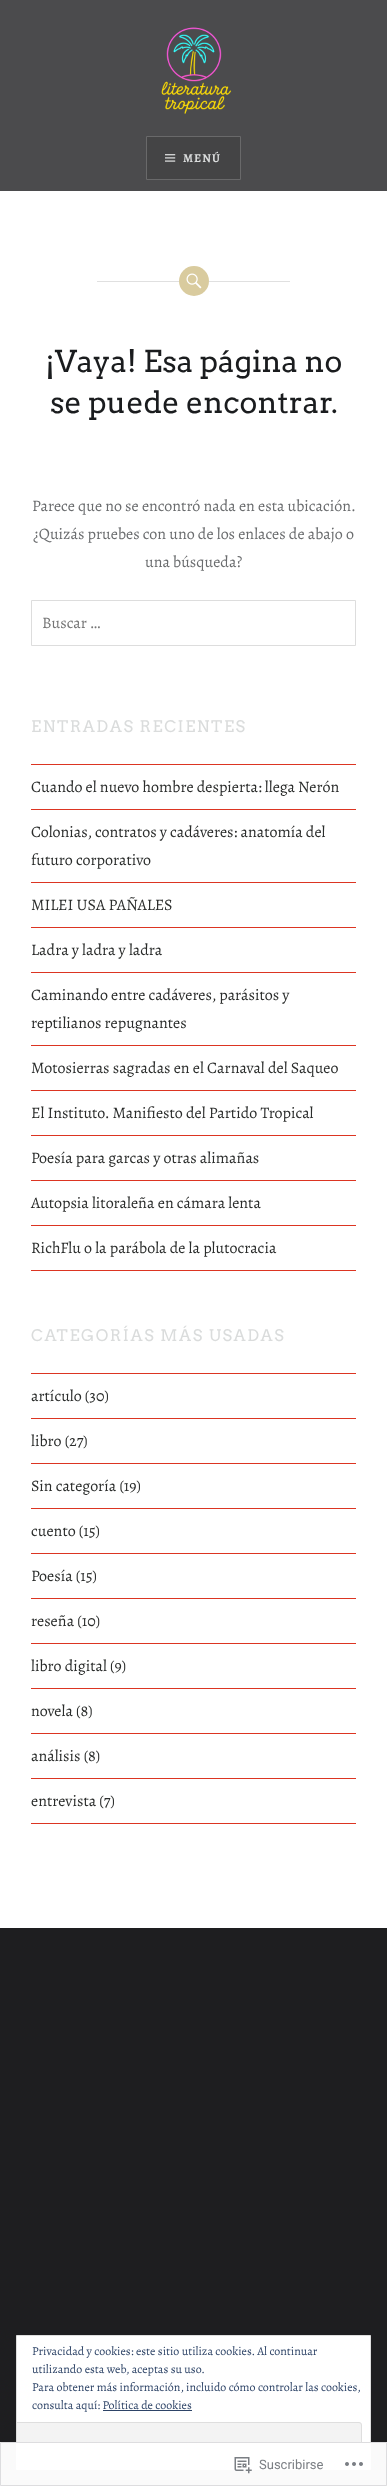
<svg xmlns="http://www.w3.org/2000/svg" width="387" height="2486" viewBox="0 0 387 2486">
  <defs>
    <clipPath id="clip1"><path d="M17 2336h353v133H17z"/></clipPath>
  </defs>
  <rect width="100%" height="100%" fill="#fff"/>
  <path d="M0 0h387v191H0z" fill="#4b4b4d"/>
  <image x="161" y="27" width="71" height="87" href="img/1.png"/>
  <path d="M146.5 136.5h94v43H146.5z" fill="#444445" stroke="#69696a"/>
  <image x="165" y="154" width="11" height="8" href="img/2.png"/>
  <path d="M97 281h193v1H97z" fill="#e0e0e0"/>
  <circle cx="194" cy="281" r="15" fill="#d9cb9e"/>
  <image x="186" y="273" width="16" height="16" href="img/3.png"/>
  <path d="M31.5 600.5h324v45H31.5z" fill="none" stroke="#ddd"/>
  <path d="M31 764h325v1H31z" fill="#dc3522"/>
  <path d="M31 809h325v1H31z" fill="#dc3522"/>
  <path d="M31 882h325v1H31z" fill="#dc3522"/>
  <path d="M31 927h325v1H31z" fill="#dc3522"/>
  <path d="M31 972h325v1H31z" fill="#dc3522"/>
  <path d="M31 1045h325v1H31z" fill="#dc3522"/>
  <path d="M31 1090h325v1H31z" fill="#dc3522"/>
  <path d="M31 1135h325v1H31z" fill="#dc3522"/>
  <path d="M31 1180h325v1H31z" fill="#dc3522"/>
  <path d="M31 1225h325v1H31z" fill="#dc3522"/>
  <path d="M31 1270h325v1H31z" fill="#dc3522"/>
  <path d="M31 1373h325v1H31z" fill="#dc3522"/>
  <path d="M31 1418h325v1H31z" fill="#dc3522"/>
  <path d="M31 1463h325v1H31z" fill="#dc3522"/>
  <path d="M31 1508h325v1H31z" fill="#dc3522"/>
  <path d="M31 1553h325v1H31z" fill="#dc3522"/>
  <path d="M31 1598h325v1H31z" fill="#dc3522"/>
  <path d="M31 1643h325v1H31z" fill="#dc3522"/>
  <path d="M31 1688h325v1H31z" fill="#dc3522"/>
  <path d="M31 1733h325v1H31z" fill="#dc3522"/>
  <path d="M31 1778h325v1H31z" fill="#dc3522"/>
  <path d="M31 1823h325v1H31z" fill="#dc3522"/>
  <path d="M0 1928h387v558H0z" fill="#1e1e20"/>
  <path d="M16.5 2335.5h354v134H16.5z" fill="#fff" stroke="#dedede"/>
  <path d="M103 2410h89v1H103z" fill="#2e4467"/>
  <path d="M17 2422H359C360.5 2422 362 2423.5 362 2425V2458C362 2459.5 360.5 2461 359 2461H17Z" fill="#f3f3f3"/>
  <g clip-path="url(#clip1)">
    <rect x="9.5" y="2422.5" width="352" height="38" rx="2.5" fill="none" stroke="#dedede"/>
  </g>
  <path d="M0 2442h387v44H0z" fill="#fffffffa"/>
  <path d="M0.5 2442.5h386v43H0.5z" fill="none" stroke="#dcdcdefa"/>
  <image x="234" y="2457" width="18" height="17" href="img/4.png"/>
  <image x="345" y="2462" width="18" height="4" href="img/5.png"/>
  <text x="183" y="162" font-family="Alegreya" font-size="12" font-weight="bold" letter-spacing="1" fill="#dadcdc">MENÚ</text>
  <g font-family="Arvo" font-size="30" fill="#1a1c1e">
    <text x="45" y="372">¡Vaya! Esa página no</text>
    <text x="50" y="413">se puede encontrar.</text>
  </g>
  <g font-family="Alegreya" font-size="16" fill="#6a6c6e">
    <text x="32" y="511">Parece que no se encontró nada en esta ubicación.</text>
    <text x="33" y="539">¿Quizás pruebes con uno de los enlaces de abajo o</text>
    <text x="145" y="567">una búsqueda?</text>
  </g>
  <text x="42" y="628" font-family="Alegreya" font-size="16" fill="#757575">Buscar …</text>
  <text x="31" y="732" font-family="Arvo" font-size="16" letter-spacing="1.6" fill="#dadcdc">ENTRADAS RECIENTES</text>
  <g font-family="Alegreya" font-size="16" fill="#2a2c2b">
    <text x="31" y="792">Cuando el nuevo hombre despierta: llega Nerón</text>
    <text x="31" y="837">Colonias, contratos y cadáveres: anatomía del</text>
    <text x="31" y="865">futuro corporativo</text>
    <text x="31" y="910">MILEI USA PAÑALES</text>
    <text x="31" y="955">Ladra y ladra y ladra</text>
    <text x="31" y="1000">Caminando entre cadáveres, parásitos y</text>
    <text x="31" y="1028">reptilianos repugnantes</text>
    <text x="31" y="1073">Motosierras sagradas en el Carnaval del Saqueo</text>
    <text x="31" y="1118">El Instituto. Manifiesto del Partido Tropical</text>
    <text x="31" y="1163">Poesía para garcas y otras alimañas</text>
    <text x="31" y="1208">Autopsia litoraleña en cámara lenta</text>
    <text x="31" y="1253">RichFlu o la parábola de la plutocracia</text>
  </g>
  <text x="31" y="1341" font-family="Arvo" font-size="16" letter-spacing="1.6" fill="#dadcdc">CATEGORÍAS MÁS USADAS</text>
  <g font-family="Alegreya" font-size="16" fill="#2a2c2b">
    <text x="31" y="1401">artículo (30)</text>
    <text x="31" y="1446">libro (27)</text>
    <text x="31" y="1491">Sin categoría (19)</text>
    <text x="31" y="1536">cuento (15)</text>
    <text x="31" y="1581">Poesía (15)</text>
    <text x="31" y="1626">reseña (10)</text>
    <text x="31" y="1671">libro digital (9)</text>
    <text x="31" y="1716">novela (8)</text>
    <text x="31" y="1761">análisis (8)</text>
    <text x="31" y="1806">entrevista (7)</text>
  </g>
  <g font-family="Alegreya" font-size="12" fill="#2e4467">
    <text x="32" y="2355">Privacidad y cookies: este sitio utiliza cookies. Al continuar</text>
    <text x="32" y="2373">utilizando esta web, aceptas su uso.</text>
    <text x="32" y="2391">Para obtener más información, incluido cómo controlar las cookies,</text>
    <text x="32" y="2409">consulta aquí: Política de cookies</text>
  </g>
  <text x="259" y="2469" font-family="Roboto" font-size="13" fill="#7b7f84">Suscribirse</text>
</svg>
